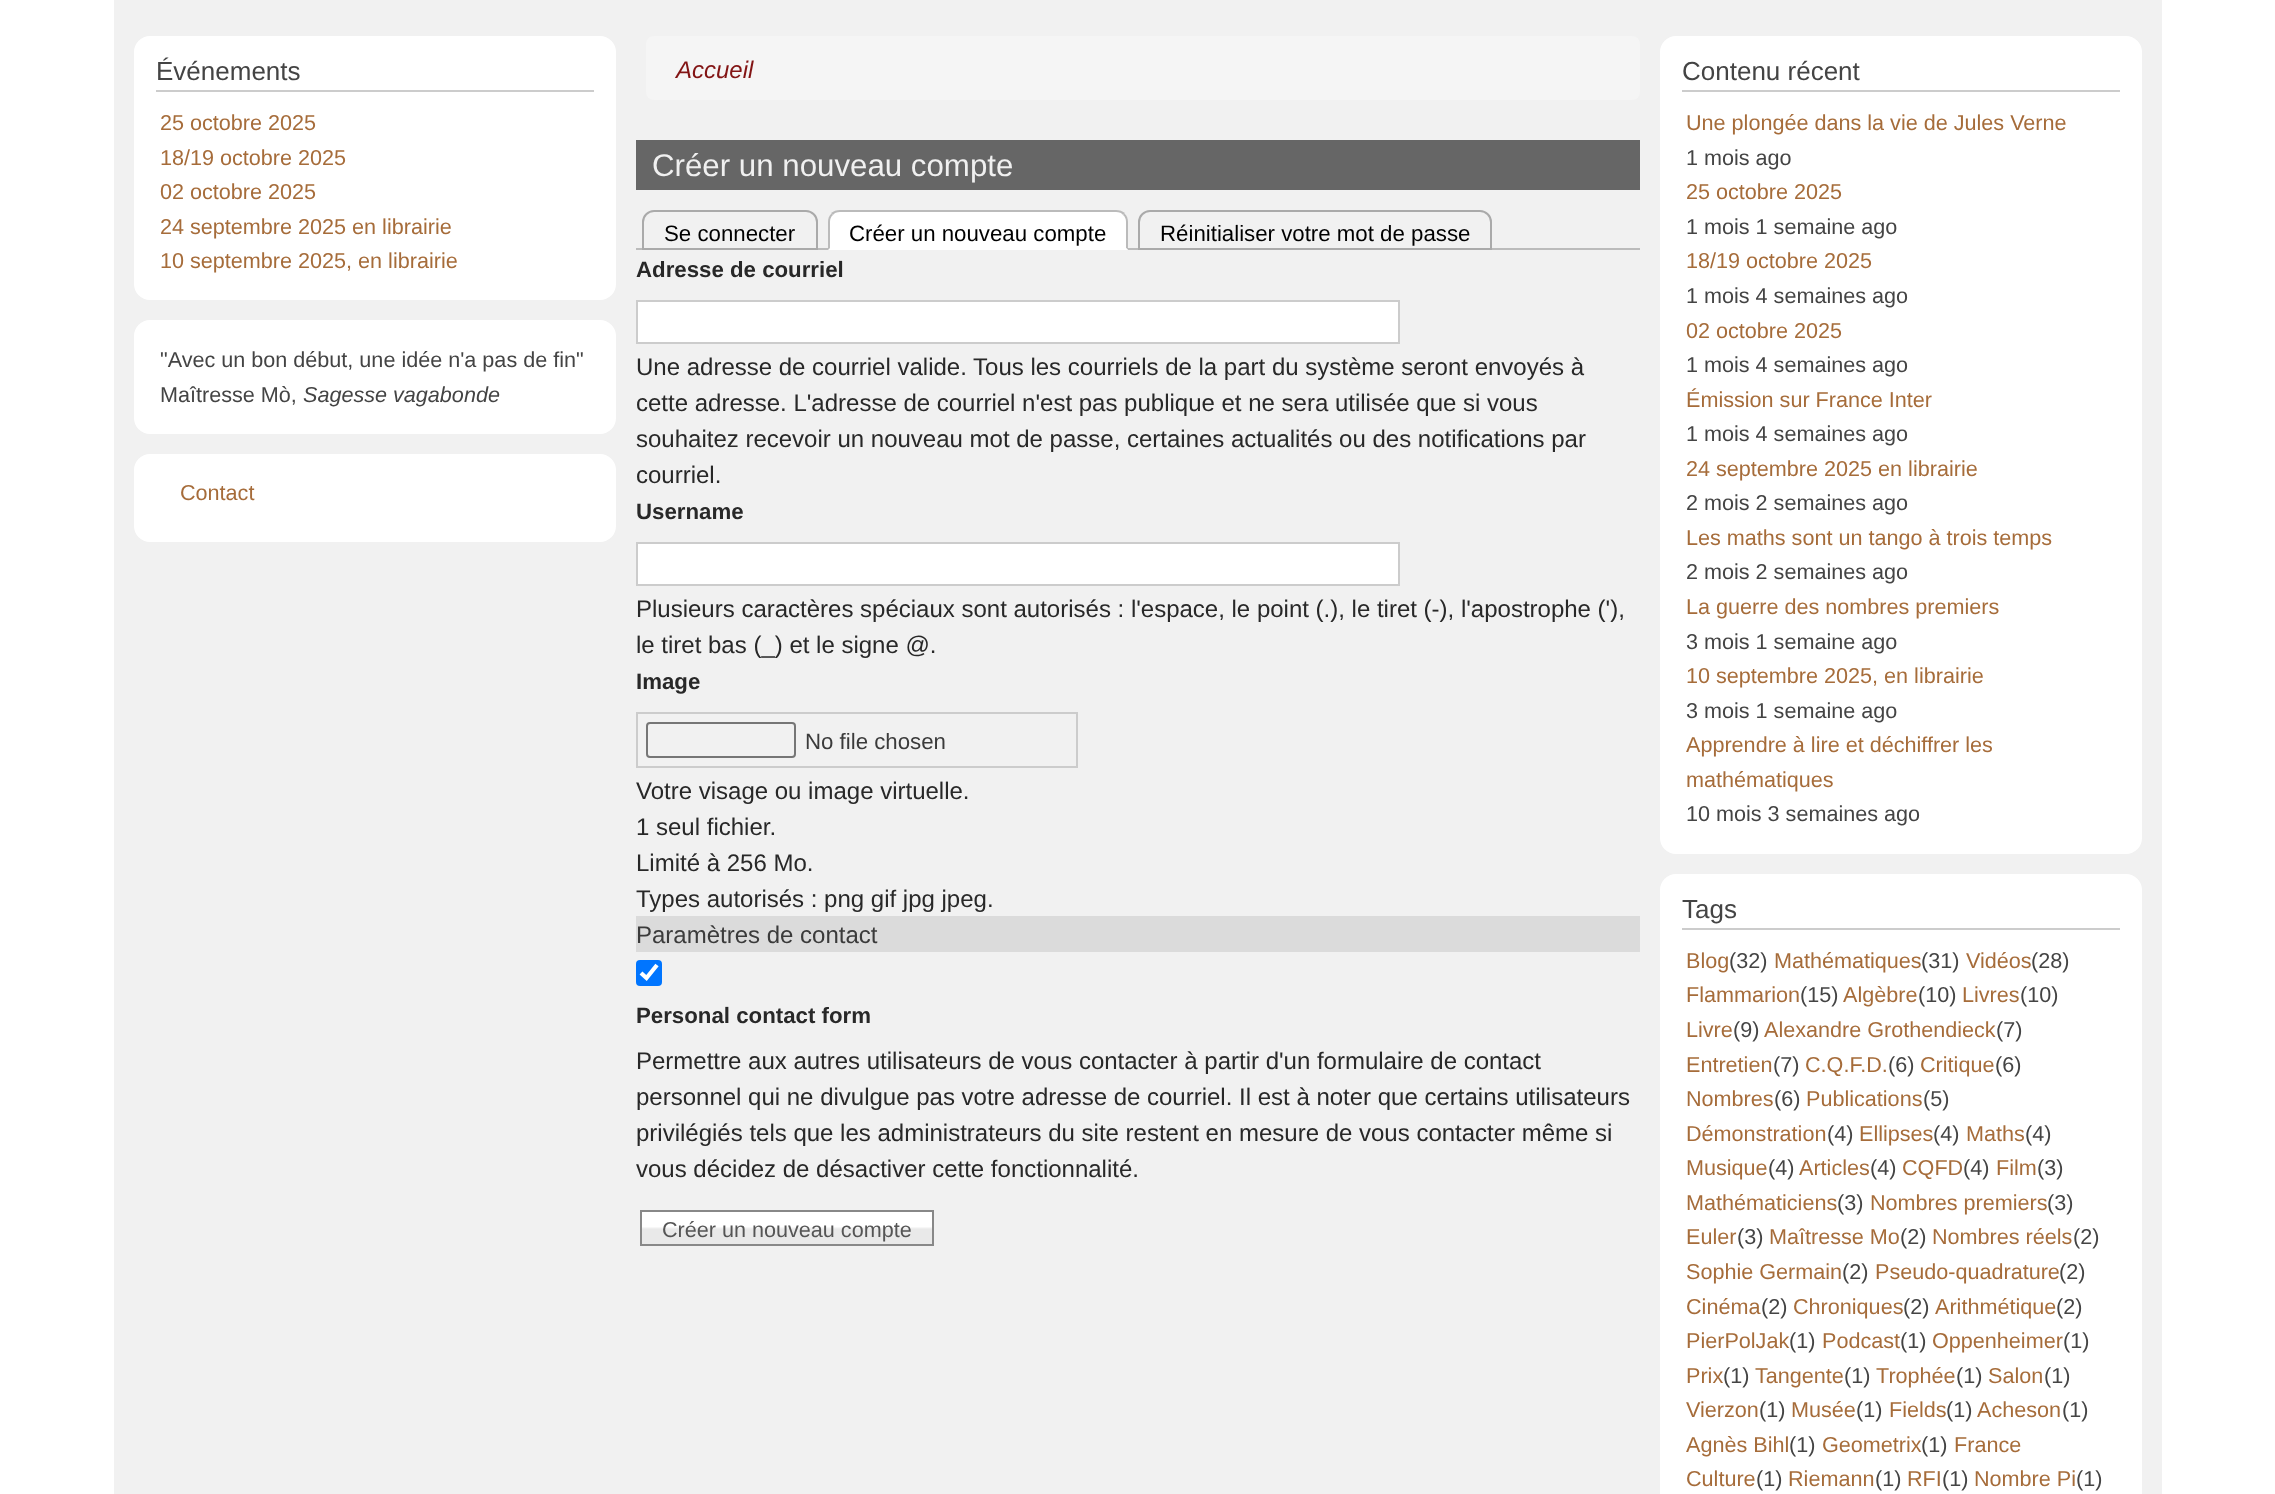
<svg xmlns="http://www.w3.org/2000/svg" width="2275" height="1494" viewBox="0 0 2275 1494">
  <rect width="100%" height="100%" fill="#fff"/>
  <path d="M114 0h2048v1494H114z" fill="#f1f1f1"/>
  <rect x="135" y="37" width="480" height="262" rx="15" fill="#fff" stroke="#fff" stroke-width="2"/>
  <path d="M156 90h438v2H156z" fill="#ccc"/>
  <rect x="135" y="321" width="480" height="112" rx="15" fill="#fff" stroke="#fff" stroke-width="2"/>
  <rect x="135" y="455" width="480" height="86" rx="15" fill="#fff" stroke="#fff" stroke-width="2"/>
  <rect x="646" y="36" width="994" height="64" rx="8" fill="#f5f5f5"/>
  <path d="M636 140h1004v50H636z" fill="#666"/>
  <path d="M636 248h1004v2H636z" fill="#bbb"/>
  <path d="M654 211H806C812 211 817 216 817 222V249H643V222C643 216 648 211 654 211Z" fill="#f1f1f1" stroke="#aaa" stroke-width="2"/>
  <path d="M840 210H1116C1122.5 210 1128 215.5 1128 222V250H828V222C828 215.5 833.5 210 840 210Z" fill="#fff"/>
  <path d="M840 210C836 210 834 211 831 213L833 215C834 213 837 212 840 212H1116C1119 212 1122 213 1123 215L1125 213C1122 211 1120 210 1116 210Z" fill="#bbb"/>
  <path d="M1128 250V222C1128 218.5 1127 215.5 1124.5 213.5L1123 215C1125 216.5 1126 219 1126 222V248Z" fill="#bbb"/>
  <path d="M1128 250L1126 248H830L828 250Z" fill="#fff"/>
  <path d="M828 250L830 248V222C830 219 831 216.5 833 215L831.5 213.5C829 215.5 828 218.5 828 222Z" fill="#bbb"/>
  <path d="M1150 211H1480C1486 211 1491 216 1491 222V249H1139V222C1139 216 1144 211 1150 211Z" fill="#f1f1f1" stroke="#aaa" stroke-width="2"/>
  <path d="M637 301h762v42H637z" fill="#fff" stroke="#ccc" stroke-width="2"/>
  <path d="M637 543h762v42H637z" fill="#fff" stroke="#ccc" stroke-width="2"/>
  <path d="M637 713h440v54H637z" fill="none" stroke="#ccc" stroke-width="2"/>
  <rect x="647" y="723" width="148" height="34" rx="3" fill="none" stroke="#767676" stroke-width="2"/>
  <path d="M636 916h1004v36H636z" fill="#dbdbdb"/>
  <rect x="636" y="960" width="26" height="26" rx="4" fill="#0075ff"/>
  <path d="M641 973L646.5 978L657 965" fill="none" stroke="#fff" stroke-width="4.2"/>
  <path d="M642 1212h290v15H642z" fill="#fff"/>
  <image x="642" y="1227" width="290" height="17" href="img/1.png"/>
  <path d="M641 1211h292v34H641z" fill="none" stroke="#888" stroke-width="2"/>
  <rect x="1661" y="37" width="480" height="816" rx="15" fill="#fff" stroke="#fff" stroke-width="2"/>
  <path d="M1682 90h438v2H1682z" fill="#ccc"/>
  <rect x="1661" y="875" width="480" height="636" rx="15" fill="#fff" stroke="#fff" stroke-width="2"/>
  <path d="M1682 928h438v2H1682z" fill="#ccc"/>
  <text x="156" y="80" font-family="Liberation Sans" font-size="26" fill="#444">Événements</text>
  <g font-family="Liberation Sans" font-size="21.6" fill="#a66c3a">
    <text x="160" y="130">25 octobre 2025</text>
    <text x="160" y="165">18/19 octobre 2025</text>
    <text x="160" y="199">02 octobre 2025</text>
    <text x="160" y="234">24 septembre 2025 en librairie</text>
    <text x="160" y="268">10 septembre 2025, en librairie</text>
  </g>
  <g font-family="Liberation Sans" font-size="21.6" fill="#444">
    <text x="160" y="367">"Avec un bon début, une idée n'a pas de fin"</text>
    <text x="160" y="402">Maîtresse Mò,</text>
  </g>
  <text x="303" y="402" font-family="Liberation Sans" font-size="21.6" font-style="italic" fill="#444">Sagesse vagabonde</text>
  <text x="180" y="500" font-family="Liberation Sans" font-size="21.6" fill="#a66c3a">Contact</text>
  <text x="676" y="78" font-family="Liberation Sans" font-size="24" font-style="italic" fill="#821414">Accueil</text>
  <text x="652" y="176" font-family="Liberation Sans" font-size="31.25" fill="#f0f0f0">Créer un nouveau compte</text>
  <g font-family="Liberation Sans" font-size="22.25" fill="#000">
    <text x="664" y="241">Se connecter</text>
    <text x="849" y="241">Créer un nouveau compte</text>
    <text x="1160" y="241">Réinitialiser votre mot de passe</text>
  </g>
  <text x="636" y="277" font-family="Liberation Sans" font-size="22.25" font-weight="bold" fill="#282828">Adresse de courriel</text>
  <g font-family="Liberation Sans" font-size="24" fill="#282828">
    <text x="636" y="375">Une adresse de courriel valide. Tous les courriels de la part du système seront envoyés à</text>
    <text x="636" y="411">cette adresse. L'adresse de courriel n'est pas publique et ne sera utilisée que si vous</text>
    <text x="636" y="447">souhaitez recevoir un nouveau mot de passe, certaines actualités ou des notifications par</text>
    <text x="636" y="483">courriel.</text>
  </g>
  <text x="636" y="519" font-family="Liberation Sans" font-size="22.25" font-weight="bold" fill="#282828">Username</text>
  <g font-family="Liberation Sans" font-size="24" fill="#282828">
    <text x="636" y="617">Plusieurs caractères spéciaux sont autorisés : l'espace, le point (.), le tiret (-), l'apostrophe ('),</text>
    <text x="636" y="653">le tiret bas (_) et le signe @.</text>
  </g>
  <text x="636" y="689" font-family="Liberation Sans" font-size="22.25" font-weight="bold" fill="#282828">Image</text>
  <text x="805" y="749" font-family="Liberation Sans" font-size="22.25" fill="#3b3b3b">No file chosen</text>
  <g font-family="Liberation Sans" font-size="24" fill="#282828">
    <text x="636" y="799">Votre visage ou image virtuelle.</text>
    <text x="636" y="835">1 seul fichier.</text>
    <text x="636" y="871">Limité à 256 Mo.</text>
    <text x="636" y="907">Types autorisés : png gif jpg jpeg.</text>
  </g>
  <text x="636" y="943" font-family="Liberation Sans" font-size="24" fill="#3b3b3b">Paramètres de contact</text>
  <text x="636" y="1023" font-family="Liberation Sans" font-size="22.25" font-weight="bold" fill="#282828">Personal contact form</text>
  <g font-family="Liberation Sans" font-size="24" fill="#282828">
    <text x="636" y="1069">Permettre aux autres utilisateurs de vous contacter à partir d'un formulaire de contact</text>
    <text x="636" y="1105">personnel qui ne divulgue pas votre adresse de courriel. Il est à noter que certains utilisateurs</text>
    <text x="636" y="1141">privilégiés tels que les administrateurs du site restent en mesure de vous contacter même si</text>
    <text x="636" y="1177">vous décidez de désactiver cette fonctionnalité.</text>
  </g>
  <text x="662" y="1237" font-family="Liberation Sans" font-size="21.6" fill="#555">Créer un nouveau compte</text>
  <text x="1682" y="80" font-family="Liberation Sans" font-size="26" fill="#444">Contenu récent</text>
  <text x="1686" y="130" font-family="Liberation Sans" font-size="21.6" fill="#a66c3a">Une plongée dans la vie de Jules Verne</text>
  <text x="1686" y="165" font-family="Liberation Sans" font-size="21.6" fill="#444">1 mois ago</text>
  <text x="1686" y="199" font-family="Liberation Sans" font-size="21.6" fill="#a66c3a">25 octobre 2025</text>
  <text x="1686" y="234" font-family="Liberation Sans" font-size="21.6" fill="#444">1 mois 1 semaine ago</text>
  <text x="1686" y="268" font-family="Liberation Sans" font-size="21.6" fill="#a66c3a">18/19 octobre 2025</text>
  <text x="1686" y="303" font-family="Liberation Sans" font-size="21.6" fill="#444">1 mois 4 semaines ago</text>
  <text x="1686" y="338" font-family="Liberation Sans" font-size="21.6" fill="#a66c3a">02 octobre 2025</text>
  <text x="1686" y="372" font-family="Liberation Sans" font-size="21.6" fill="#444">1 mois 4 semaines ago</text>
  <text x="1686" y="407" font-family="Liberation Sans" font-size="21.6" fill="#a66c3a">Émission sur France Inter</text>
  <text x="1686" y="441" font-family="Liberation Sans" font-size="21.6" fill="#444">1 mois 4 semaines ago</text>
  <text x="1686" y="476" font-family="Liberation Sans" font-size="21.6" fill="#a66c3a">24 septembre 2025 en librairie</text>
  <text x="1686" y="510" font-family="Liberation Sans" font-size="21.6" fill="#444">2 mois 2 semaines ago</text>
  <text x="1686" y="545" font-family="Liberation Sans" font-size="21.6" fill="#a66c3a">Les maths sont un tango à trois temps</text>
  <text x="1686" y="579" font-family="Liberation Sans" font-size="21.6" fill="#444">2 mois 2 semaines ago</text>
  <text x="1686" y="614" font-family="Liberation Sans" font-size="21.6" fill="#a66c3a">La guerre des nombres premiers</text>
  <text x="1686" y="649" font-family="Liberation Sans" font-size="21.6" fill="#444">3 mois 1 semaine ago</text>
  <text x="1686" y="683" font-family="Liberation Sans" font-size="21.6" fill="#a66c3a">10 septembre 2025, en librairie</text>
  <text x="1686" y="718" font-family="Liberation Sans" font-size="21.6" fill="#444">3 mois 1 semaine ago</text>
  <g font-family="Liberation Sans" font-size="21.6" fill="#a66c3a">
    <text x="1686" y="752">Apprendre à lire et déchiffrer les</text>
    <text x="1686" y="787">mathématiques</text>
  </g>
  <text x="1686" y="821" font-family="Liberation Sans" font-size="21.6" fill="#444">10 mois 3 semaines ago</text>
  <text x="1682" y="918" font-family="Liberation Sans" font-size="26" fill="#444">Tags</text>
  <text x="1686" y="968" font-family="Liberation Sans" font-size="21.6" fill="#a66c3a">Blog</text>
  <text x="1729" y="968" font-family="Liberation Sans" font-size="21.6" fill="#444">(32)</text>
  <text x="1774" y="968" font-family="Liberation Sans" font-size="21.6" fill="#a66c3a">Mathématiques</text>
  <text x="1921" y="968" font-family="Liberation Sans" font-size="21.6" fill="#444">(31)</text>
  <text x="1966" y="968" font-family="Liberation Sans" font-size="21.6" fill="#a66c3a">Vidéos</text>
  <text x="2031" y="968" font-family="Liberation Sans" font-size="21.6" fill="#444">(28)</text>
  <text x="1686" y="1002" font-family="Liberation Sans" font-size="21.6" fill="#a66c3a">Flammarion</text>
  <text x="1800" y="1002" font-family="Liberation Sans" font-size="21.6" fill="#444">(15)</text>
  <text x="1843" y="1002" font-family="Liberation Sans" font-size="21.6" fill="#a66c3a">Algèbre</text>
  <text x="1918" y="1002" font-family="Liberation Sans" font-size="21.6" fill="#444">(10)</text>
  <text x="1962" y="1002" font-family="Liberation Sans" font-size="21.6" fill="#a66c3a">Livres</text>
  <text x="2020" y="1002" font-family="Liberation Sans" font-size="21.6" fill="#444">(10)</text>
  <text x="1686" y="1037" font-family="Liberation Sans" font-size="21.6" fill="#a66c3a">Livre</text>
  <text x="1733" y="1037" font-family="Liberation Sans" font-size="21.6" fill="#444">(9)</text>
  <text x="1764" y="1037" font-family="Liberation Sans" font-size="21.6" fill="#a66c3a">Alexandre Grothendieck</text>
  <text x="1996" y="1037" font-family="Liberation Sans" font-size="21.6" fill="#444">(7)</text>
  <text x="1686" y="1072" font-family="Liberation Sans" font-size="21.6" fill="#a66c3a">Entretien</text>
  <text x="1773" y="1072" font-family="Liberation Sans" font-size="21.6" fill="#444">(7)</text>
  <text x="1805" y="1072" font-family="Liberation Sans" font-size="21.6" fill="#a66c3a">C.Q.F.D.</text>
  <text x="1888" y="1072" font-family="Liberation Sans" font-size="21.6" fill="#444">(6)</text>
  <text x="1920" y="1072" font-family="Liberation Sans" font-size="21.6" fill="#a66c3a">Critique</text>
  <text x="1995" y="1072" font-family="Liberation Sans" font-size="21.6" fill="#444">(6)</text>
  <text x="1686" y="1106" font-family="Liberation Sans" font-size="21.6" fill="#a66c3a">Nombres</text>
  <text x="1774" y="1106" font-family="Liberation Sans" font-size="21.6" fill="#444">(6)</text>
  <text x="1806" y="1106" font-family="Liberation Sans" font-size="21.6" fill="#a66c3a">Publications</text>
  <text x="1923" y="1106" font-family="Liberation Sans" font-size="21.6" fill="#444">(5)</text>
  <text x="1686" y="1141" font-family="Liberation Sans" font-size="21.6" fill="#a66c3a">Démonstration</text>
  <text x="1827" y="1141" font-family="Liberation Sans" font-size="21.6" fill="#444">(4)</text>
  <text x="1859" y="1141" font-family="Liberation Sans" font-size="21.6" fill="#a66c3a">Ellipses</text>
  <text x="1933" y="1141" font-family="Liberation Sans" font-size="21.6" fill="#444">(4)</text>
  <text x="1966" y="1141" font-family="Liberation Sans" font-size="21.6" fill="#a66c3a">Maths</text>
  <text x="2025" y="1141" font-family="Liberation Sans" font-size="21.6" fill="#444">(4)</text>
  <text x="1686" y="1175" font-family="Liberation Sans" font-size="21.6" fill="#a66c3a">Musique</text>
  <text x="1768" y="1175" font-family="Liberation Sans" font-size="21.6" fill="#444">(4)</text>
  <text x="1799" y="1175" font-family="Liberation Sans" font-size="21.6" fill="#a66c3a">Articles</text>
  <text x="1870" y="1175" font-family="Liberation Sans" font-size="21.6" fill="#444">(4)</text>
  <text x="1902" y="1175" font-family="Liberation Sans" font-size="21.6" fill="#a66c3a">CQFD</text>
  <text x="1963" y="1175" font-family="Liberation Sans" font-size="21.6" fill="#444">(4)</text>
  <text x="1996" y="1175" font-family="Liberation Sans" font-size="21.6" fill="#a66c3a">Film</text>
  <text x="2037" y="1175" font-family="Liberation Sans" font-size="21.6" fill="#444">(3)</text>
  <text x="1686" y="1210" font-family="Liberation Sans" font-size="21.6" fill="#a66c3a">Mathématiciens</text>
  <text x="1837" y="1210" font-family="Liberation Sans" font-size="21.6" fill="#444">(3)</text>
  <text x="1870" y="1210" font-family="Liberation Sans" font-size="21.6" fill="#a66c3a">Nombres premiers</text>
  <text x="2047" y="1210" font-family="Liberation Sans" font-size="21.6" fill="#444">(3)</text>
  <text x="1686" y="1244" font-family="Liberation Sans" font-size="21.6" fill="#a66c3a">Euler</text>
  <text x="1737" y="1244" font-family="Liberation Sans" font-size="21.6" fill="#444">(3)</text>
  <text x="1769" y="1244" font-family="Liberation Sans" font-size="21.6" fill="#a66c3a">Maîtresse Mo</text>
  <text x="1900" y="1244" font-family="Liberation Sans" font-size="21.6" fill="#444">(2)</text>
  <text x="1932" y="1244" font-family="Liberation Sans" font-size="21.6" fill="#a66c3a">Nombres réels</text>
  <text x="2073" y="1244" font-family="Liberation Sans" font-size="21.6" fill="#444">(2)</text>
  <text x="1686" y="1279" font-family="Liberation Sans" font-size="21.6" fill="#a66c3a">Sophie Germain</text>
  <text x="1842" y="1279" font-family="Liberation Sans" font-size="21.6" fill="#444">(2)</text>
  <text x="1875" y="1279" font-family="Liberation Sans" font-size="21.6" fill="#a66c3a">Pseudo-quadrature</text>
  <text x="2059" y="1279" font-family="Liberation Sans" font-size="21.6" fill="#444">(2)</text>
  <text x="1686" y="1314" font-family="Liberation Sans" font-size="21.6" fill="#a66c3a">Cinéma</text>
  <text x="1761" y="1314" font-family="Liberation Sans" font-size="21.6" fill="#444">(2)</text>
  <text x="1793" y="1314" font-family="Liberation Sans" font-size="21.6" fill="#a66c3a">Chroniques</text>
  <text x="1903" y="1314" font-family="Liberation Sans" font-size="21.6" fill="#444">(2)</text>
  <text x="1935" y="1314" font-family="Liberation Sans" font-size="21.6" fill="#a66c3a">Arithmétique</text>
  <text x="2056" y="1314" font-family="Liberation Sans" font-size="21.6" fill="#444">(2)</text>
  <text x="1686" y="1348" font-family="Liberation Sans" font-size="21.6" fill="#a66c3a">PierPolJak</text>
  <text x="1789" y="1348" font-family="Liberation Sans" font-size="21.6" fill="#444">(1)</text>
  <text x="1822" y="1348" font-family="Liberation Sans" font-size="21.6" fill="#a66c3a">Podcast</text>
  <text x="1900" y="1348" font-family="Liberation Sans" font-size="21.6" fill="#444">(1)</text>
  <text x="1932" y="1348" font-family="Liberation Sans" font-size="21.6" fill="#a66c3a">Oppenheimer</text>
  <text x="2063" y="1348" font-family="Liberation Sans" font-size="21.6" fill="#444">(1)</text>
  <text x="1686" y="1383" font-family="Liberation Sans" font-size="21.6" fill="#a66c3a">Prix</text>
  <text x="1723" y="1383" font-family="Liberation Sans" font-size="21.6" fill="#444">(1)</text>
  <text x="1755" y="1383" font-family="Liberation Sans" font-size="21.6" fill="#a66c3a">Tangente</text>
  <text x="1844" y="1383" font-family="Liberation Sans" font-size="21.6" fill="#444">(1)</text>
  <text x="1876" y="1383" font-family="Liberation Sans" font-size="21.6" fill="#a66c3a">Trophée</text>
  <text x="1956" y="1383" font-family="Liberation Sans" font-size="21.6" fill="#444">(1)</text>
  <text x="1988" y="1383" font-family="Liberation Sans" font-size="21.6" fill="#a66c3a">Salon</text>
  <text x="2044" y="1383" font-family="Liberation Sans" font-size="21.6" fill="#444">(1)</text>
  <text x="1686" y="1417" font-family="Liberation Sans" font-size="21.6" fill="#a66c3a">Vierzon</text>
  <text x="1759" y="1417" font-family="Liberation Sans" font-size="21.6" fill="#444">(1)</text>
  <text x="1791" y="1417" font-family="Liberation Sans" font-size="21.6" fill="#a66c3a">Musée</text>
  <text x="1856" y="1417" font-family="Liberation Sans" font-size="21.6" fill="#444">(1)</text>
  <text x="1889" y="1417" font-family="Liberation Sans" font-size="21.6" fill="#a66c3a">Fields</text>
  <text x="1946" y="1417" font-family="Liberation Sans" font-size="21.6" fill="#444">(1)</text>
  <text x="1977" y="1417" font-family="Liberation Sans" font-size="21.6" fill="#a66c3a">Acheson</text>
  <text x="2062" y="1417" font-family="Liberation Sans" font-size="21.6" fill="#444">(1)</text>
  <text x="1686" y="1452" font-family="Liberation Sans" font-size="21.6" fill="#a66c3a">Agnès Bihl</text>
  <text x="1789" y="1452" font-family="Liberation Sans" font-size="21.6" fill="#444">(1)</text>
  <text x="1822" y="1452" font-family="Liberation Sans" font-size="21.6" fill="#a66c3a">Geometrix</text>
  <text x="1921" y="1452" font-family="Liberation Sans" font-size="21.6" fill="#444">(1)</text>
  <g font-family="Liberation Sans" font-size="21.6" fill="#a66c3a">
    <text x="1954" y="1452">France</text>
    <text x="1686" y="1486">Culture</text>
  </g>
  <text x="1756" y="1486" font-family="Liberation Sans" font-size="21.6" fill="#444">(1)</text>
  <text x="1788" y="1486" font-family="Liberation Sans" font-size="21.6" fill="#a66c3a">Riemann</text>
  <text x="1875" y="1486" font-family="Liberation Sans" font-size="21.6" fill="#444">(1)</text>
  <text x="1907" y="1486" font-family="Liberation Sans" font-size="21.6" fill="#a66c3a">RFI</text>
  <text x="1942" y="1486" font-family="Liberation Sans" font-size="21.6" fill="#444">(1)</text>
  <text x="1974" y="1486" font-family="Liberation Sans" font-size="21.6" fill="#a66c3a">Nombre Pi</text>
  <text x="2076" y="1486" font-family="Liberation Sans" font-size="21.6" fill="#444">(1)</text>
</svg>
